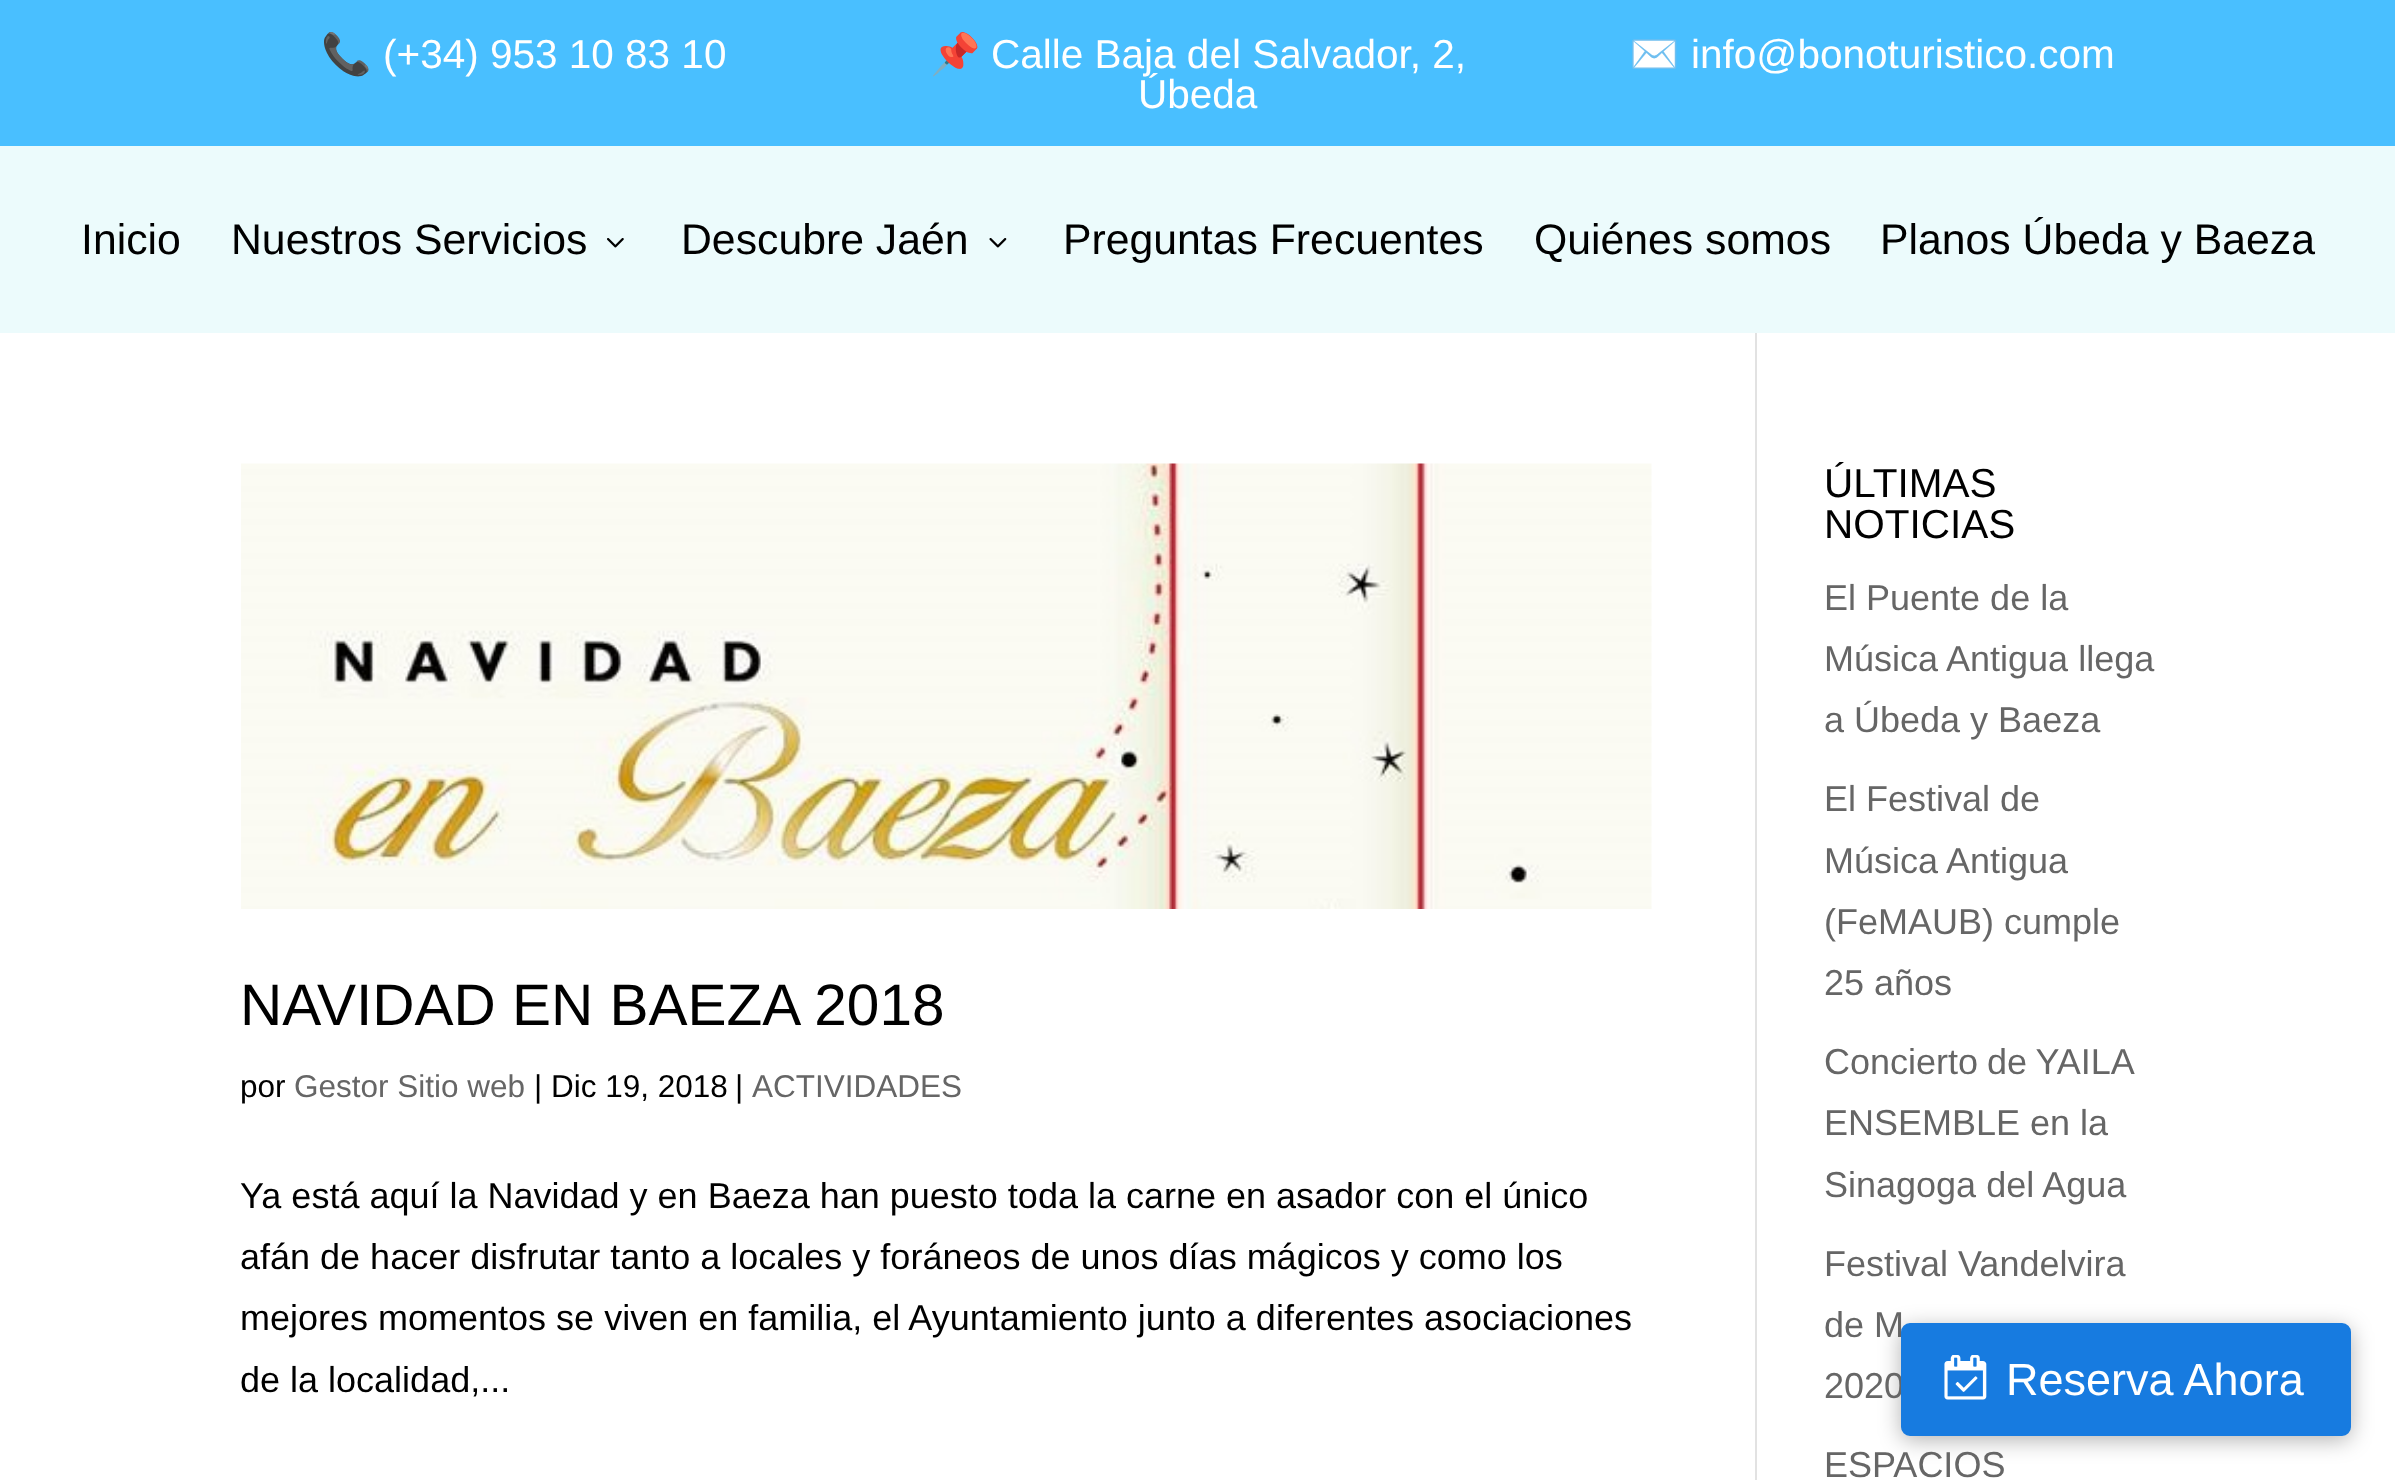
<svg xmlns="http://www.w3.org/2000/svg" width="2395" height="1480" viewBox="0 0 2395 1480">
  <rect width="100%" height="100%" fill="#fff"/>
  <path d="M0 0h2395v146H0z" fill="#49bfff"/>
  <path d="M0 146h2395v187H0z" fill="#ecfbfc"/>
  <image x="607" y="238" width="17" height="10" href="img/1.png"/>
  <image x="989" y="238" width="18" height="10" href="img/2.png"/>
  <path d="M1755 333h2v1147H1755z" fill="#e2e2e2"/>
  <image x="241" y="463" width="1411" height="446" href="img/3.png"/>
  <rect x="1901" y="1328" width="450" height="112" rx="9" fill="#0000004d" filter="blur(11px)"/>
  <text x="321" y="68" font-family="Noto Color Emoji" font-size="40.5" fill="#fff">📞</text>
  <text x="383" y="68" font-family="Liberation Sans" font-size="40.5" fill="#fff">(+34) 953 10 83 10</text>
  <text x="930" y="68" font-family="Noto Color Emoji" font-size="40.5" fill="#fff">📌</text>
  <g font-family="Liberation Sans" font-size="40.5" fill="#fff">
    <text x="991" y="68">Calle Baja del Salvador, 2,</text>
    <text x="1138" y="108">Úbeda</text>
  </g>
  <text x="1629" y="68" font-family="Noto Color Emoji" font-size="40.5" fill="#fff">✉️</text>
  <text x="1691" y="68" font-family="Liberation Sans" font-size="40.5" fill="#fff">info@bonoturistico.com</text>
  <g font-family="Liberation Sans" font-size="42.75" fill="#000">
    <text x="81" y="254">Inicio</text>
    <text x="231" y="254">Nuestros Servicios</text>
    <text x="681" y="254">Descubre Jaén</text>
    <text x="1063" y="254">Preguntas Frecuentes</text>
    <text x="1534" y="254">Quiénes somos</text>
    <text x="1880" y="254">Planos Úbeda y Baeza</text>
  </g>
  <text x="240" y="1025" font-family="Liberation Sans" font-size="58.5" fill="#000">NAVIDAD EN BAEZA 2018</text>
  <text x="240" y="1097" font-family="Liberation Sans" font-size="31.5" fill="#000">por</text>
  <text x="294" y="1097" font-family="Liberation Sans" font-size="31.5" fill="#666">Gestor Sitio web</text>
  <g font-family="Liberation Sans" font-size="31.5" fill="#000">
    <text x="534" y="1097">| Dic 19, 2018</text>
    <text x="735" y="1097">|</text>
  </g>
  <text x="752" y="1097" font-family="Liberation Sans" font-size="31.5" fill="#666">ACTIVIDADES</text>
  <g font-family="Liberation Sans" font-size="36" fill="#000">
    <text x="240" y="1208">Ya está aquí la Navidad y en Baeza han puesto toda la carne en asador con el único</text>
    <text x="240" y="1269">afán de hacer disfrutar tanto a locales y foráneos de unos días mágicos y como los</text>
    <text x="240" y="1330">mejores momentos se viven en familia, el Ayuntamiento junto a diferentes asociaciones</text>
    <text x="240" y="1392">de la localidad,...</text>
  </g>
  <g font-family="Liberation Sans" font-size="40.5" fill="#000">
    <text x="1824" y="497">ÚLTIMAS</text>
    <text x="1824" y="538">NOTICIAS</text>
  </g>
  <g font-family="Liberation Sans" font-size="36" fill="#666">
    <text x="1824" y="610">El Puente de la</text>
    <text x="1824" y="671">Música Antigua llega</text>
    <text x="1824" y="732">a Úbeda y Baeza</text>
    <text x="1824" y="811">El Festival de</text>
    <text x="1824" y="873">Música Antigua</text>
    <text x="1824" y="934">(FeMAUB) cumple</text>
    <text x="1824" y="995">25 años</text>
    <text x="1824" y="1074" word-spacing="-1">Concierto de YAILA</text>
    <text x="1824" y="1135">ENSEMBLE en la</text>
    <text x="1824" y="1197">Sinagoga del Agua</text>
    <text x="1824" y="1276">Festival Vandelvira</text>
    <text x="1824" y="1337">de M</text>
    <text x="1824" y="1398">2020</text>
    <text x="1824" y="1477">ESPACIOS</text>
  </g>
  <rect x="1902" y="1324" width="448" height="111" rx="8" fill="#177be0" stroke="#177be0" stroke-width="2"/>
  <image x="1944" y="1355" width="43" height="45" href="img/4.png"/>
  <text x="2006" y="1395" font-family="Liberation Sans" font-size="45" fill="#fff">Reserva Ahora</text>
</svg>
